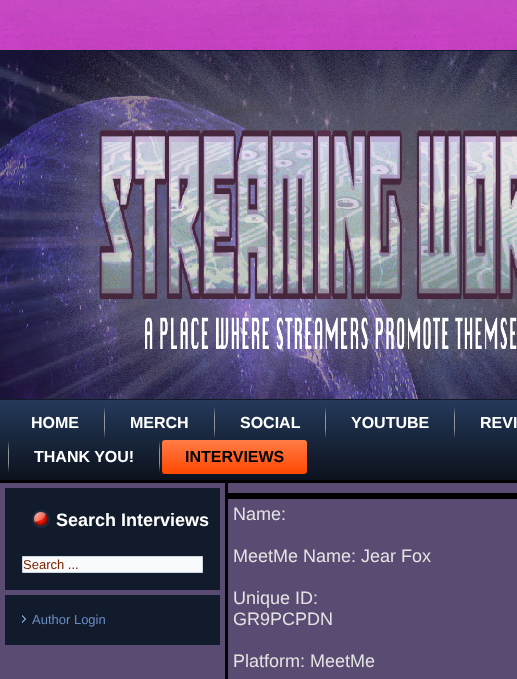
<svg xmlns="http://www.w3.org/2000/svg" width="517" height="679" viewBox="0 0 517 679">
  <defs>
    <linearGradient id="g1" gradientUnits="userSpaceOnUse" x1="350" y1="400" x2="350" y2="480"><stop offset="0" stop-color="#24395b"/><stop offset="1" stop-color="#0c121d"/></linearGradient>
    <linearGradient id="g2" gradientUnits="userSpaceOnUse" x1="235" y1="440" x2="235" y2="474"><stop offset="0" stop-color="#ff7b47"/><stop offset="1" stop-color="#ff4800"/></linearGradient>
  </defs>
  <rect width="100%" height="100%" fill="#fff"/>
  <image x="0" y="0" width="517" height="50" href="img/1.png"/>
  <path d="M0 483h517v196H0z" fill="#5a4b72"/>
  <image x="0" y="50" width="517" height="350" href="img/2.png"/>
  <path d="M0 400h517v80H0z" fill="url(#g1)"/>
  <image x="104" y="407" width="1" height="31" href="img/3.png"/>
  <image x="214" y="407" width="1" height="31" href="img/3.png"/>
  <image x="325" y="407" width="1" height="31" href="img/3.png"/>
  <image x="454" y="407" width="1" height="31" href="img/3.png"/>
  <image x="8" y="441" width="1" height="31" href="img/4.png"/>
  <image x="159" y="441" width="1" height="31" href="img/4.png"/>
  <rect x="162" y="440" width="145" height="34" rx="3" fill="url(#g2)"/>
  <path d="M0 480h225v3H0z" fill="#000"/>
  <path d="M5 488h215v102H5z" fill="#121b2b"/>
  <image x="32" y="510" width="18" height="18" href="img/5.png"/>
  <path d="M22.5 556.5h180v16H22.5z" fill="#f9fafb" stroke="#ccd6e0"/>
  <path d="M5 595h215v50H5z" fill="#121b2b"/>
  <image x="22" y="615" width="4" height="8" href="img/6.png"/>
  <path d="M226.5 481.5h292v13H226.5z" fill="none" stroke="#000" stroke-width="3"/>
  <path d="M226.5 497.5h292v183H226.5z" fill="none" stroke="#000" stroke-width="3"/>
  <g font-family="Liberation Sans" font-size="16" font-weight="bold" fill="#fff">
    <text x="31" y="428">HOME</text>
    <text x="130" y="428">MERCH</text>
    <text x="240" y="428">SOCIAL</text>
    <text x="351" y="428">YOUTUBE</text>
    <text x="480" y="428">REVI</text>
    <text x="34" y="462">THANK YOU!</text>
  </g>
  <text x="185" y="462" font-family="Liberation Sans" font-size="16" font-weight="bold" fill="#000">INTERVIEWS</text>
  <text x="56" y="526" font-family="Liberation Sans" font-size="18" font-weight="bold" fill="#fff">Search Interviews</text>
  <text x="23" y="569" font-family="Liberation Sans" font-size="13" fill="#7a2300">Search ...</text>
  <text x="32" y="624" font-family="Liberation Sans" font-size="13" fill="#698cc3">Author Login</text>
  <g font-family="Liberation Sans" font-size="18" fill="#e3e3e3">
    <text x="233" y="520">Name:</text>
    <text x="233" y="562">MeetMe Name: Jear Fox</text>
    <text x="233" y="604">Unique ID:</text>
    <text x="233" y="625">GR9PCPDN</text>
    <text x="233" y="667">Platform: MeetMe</text>
  </g>
</svg>
